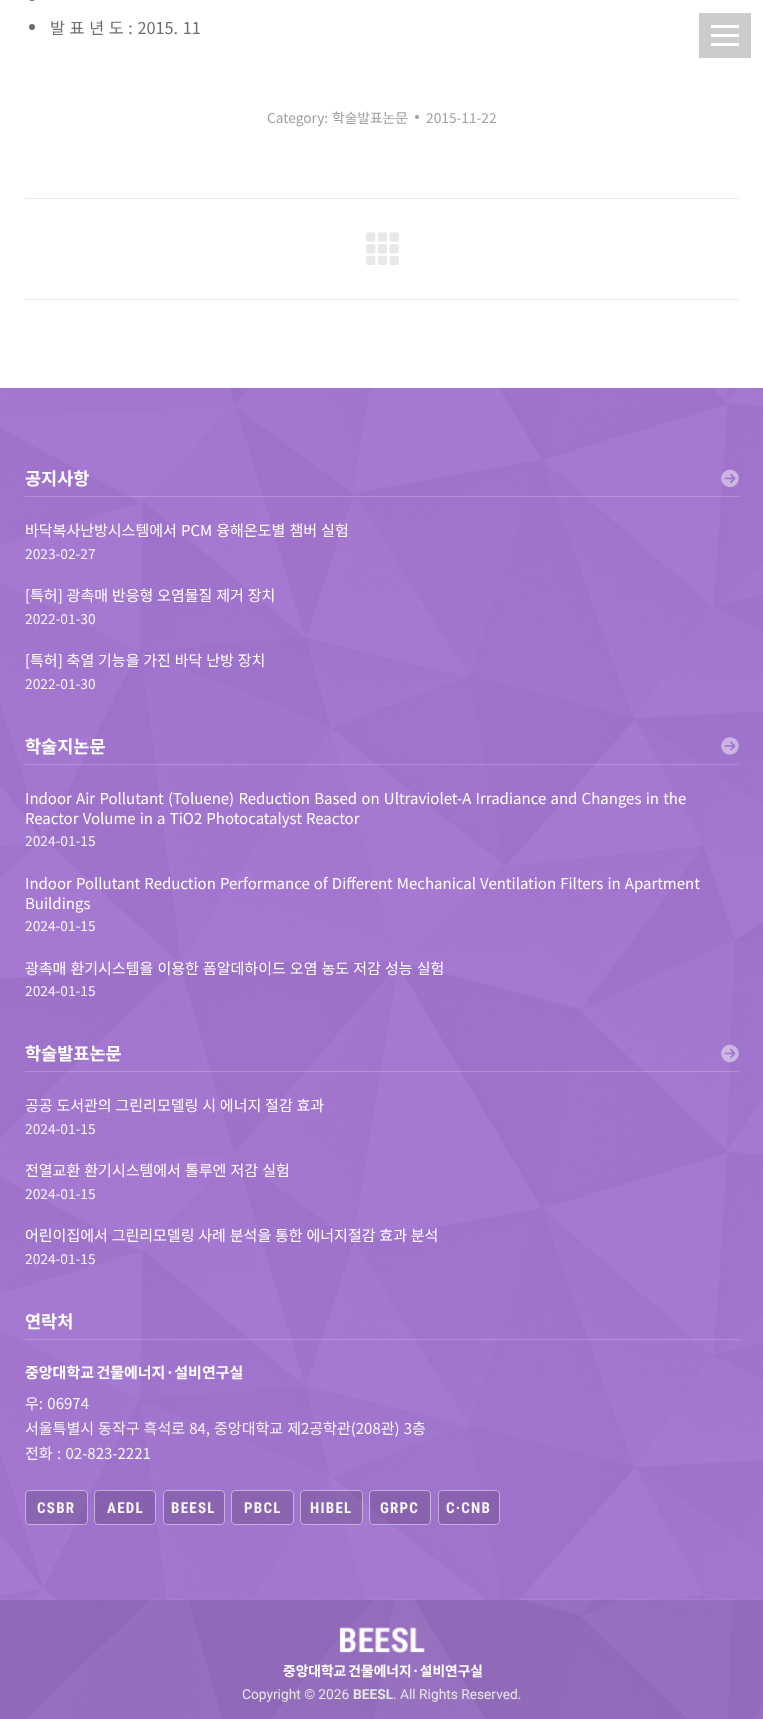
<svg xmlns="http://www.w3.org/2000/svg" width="763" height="1719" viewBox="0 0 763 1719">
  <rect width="100%" height="100%" fill="#fff"/>
  <rect x="29" y="-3" width="6" height="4" rx="3" fill="#6f6f6f"/>
  <circle cx="32" cy="27" r="3" fill="#6f6f6f"/>
  <circle cx="417" cy="117" r="2" fill="#9f9f9f"/>
  <path d="M25 198h714v1H25z" fill="#eaeaea"/>
  <path d="M25 299h714v1H25z" fill="#eaeaea"/>
  <image x="366" y="232" width="33" height="33" href="img/1.png"/>
  <path d="M699 13h52v45H699z" fill="#ccc"/>
  <path d="M711 25h28v3H711z" fill="#fff"/>
  <path d="M711 34h28v3H711z" fill="#fff"/>
  <path d="M711 43h28v3H711z" fill="#fff"/>
  <path d="M0 388h763v1212H0z" fill="#96c"/>
  <image x="0" y="387" width="763" height="1213" href="img/2.png"/>
  <path d="M25 496h714v1H25z" fill="#ffffff33"/>
  <image x="721" y="469" width="18" height="19" href="img/3.png"/>
  <path d="M25 764h714v1H25z" fill="#ffffff33"/>
  <image x="721" y="737" width="18" height="18" href="img/4.png"/>
  <path d="M25 1071h714v1H25z" fill="#ffffff33"/>
  <image x="721" y="1044" width="18" height="19" href="img/5.png"/>
  <path d="M25 1339h714v1H25z" fill="#ffffff33"/>
  <rect x="25" y="1490" width="63" height="35" rx="4" fill="#00000026"/>
  <rect x="25.5" y="1490.5" width="62" height="34" rx="3.5" fill="none" stroke="#ffffff80"/>
  <rect x="94" y="1490" width="62" height="35" rx="4" fill="#00000026"/>
  <rect x="94.5" y="1490.5" width="61" height="34" rx="3.5" fill="none" stroke="#ffffff80"/>
  <rect x="163" y="1490" width="62" height="35" rx="4" fill="#8a64b0"/>
  <rect x="163.5" y="1490.5" width="61" height="34" rx="3.5" fill="none" stroke="#ffffff80"/>
  <rect x="231" y="1490" width="63" height="35" rx="4" fill="#8a64af"/>
  <rect x="231.5" y="1490.5" width="62" height="34" rx="3.5" fill="none" stroke="#ffffff80"/>
  <rect x="300" y="1490" width="63" height="35" rx="4" fill="#00000026"/>
  <rect x="300.5" y="1490.5" width="62" height="34" rx="3.5" fill="none" stroke="#ffffff80"/>
  <rect x="369" y="1490" width="62" height="35" rx="4" fill="#00000026"/>
  <rect x="369.5" y="1490.5" width="61" height="34" rx="3.5" fill="none" stroke="#ffffff80"/>
  <rect x="438" y="1490" width="62" height="35" rx="4" fill="#00000026"/>
  <rect x="438.5" y="1490.5" width="61" height="34" rx="3.5" fill="none" stroke="#ffffff80"/>
  <path d="M0 1600h763v119H0z" fill="#895cb7"/>
  <image x="0" y="1599" width="763" height="120" href="img/6.png"/>
  <image x="339" y="1627" width="86" height="27" href="img/7.png"/>
  <text x="50" y="34" word-spacing="1" font-family="Noto Sans KR" font-size="16.25" fill="#6f6f6f">발 표 년 도 : 2015. 11</text>
  <g font-family="Noto Sans KR" font-size="13.75" fill="#9f9f9f">
    <text x="267" y="123">Category:</text>
    <text x="332" y="123">학술발표논문</text>
    <text x="426" y="123">2015-11-22</text>
  </g>
  <text x="25" y="485" font-family="Noto Sans KR" font-size="17.5" font-weight="bold" fill="#fff">공지사항</text>
  <text x="25" y="536" word-spacing="0.75" font-family="Noto Sans KR" font-size="15" fill="#fff">바닥복사난방시스템에서 PCM 융해온도별 챔버 실험</text>
  <text x="25" y="559" font-family="Noto Sans KR" font-size="13.75" fill="#f6f6f6">2023-02-27</text>
  <text x="25" y="601" word-spacing="0.5" font-family="Noto Sans KR" font-size="15" fill="#fff">[특허] 광촉매 반응형 오염물질 제거 장치</text>
  <text x="25" y="624" font-family="Noto Sans KR" font-size="13.75" fill="#f6f6f6">2022-01-30</text>
  <text x="25" y="666" word-spacing="0.5" font-family="Noto Sans KR" font-size="15" fill="#fff">[특허] 축열 기능을 가진 바닥 난방 장치</text>
  <text x="25" y="689" font-family="Noto Sans KR" font-size="13.75" fill="#f6f6f6">2022-01-30</text>
  <text x="25" y="753" font-family="Noto Sans KR" font-size="17.5" font-weight="bold" fill="#fff">학술지논문</text>
  <g font-family="Noto Sans KR" font-size="15" fill="#fff">
    <text x="25" y="804" word-spacing="0.9">Indoor Air Pollutant (Toluene) Reduction Based on Ultraviolet-A Irradiance and Changes in the</text>
    <text x="25" y="824" word-spacing="0.75">Reactor Volume in a TiO2 Photocatalyst Reactor</text>
  </g>
  <text x="25" y="846" font-family="Noto Sans KR" font-size="13.75" fill="#f6f6f6">2024-01-15</text>
  <g font-family="Noto Sans KR" font-size="15" fill="#fff">
    <text x="25" y="889" word-spacing="0.75">Indoor Pollutant Reduction Performance of Different Mechanical Ventilation Filters in Apartment</text>
    <text x="25" y="909">Buildings</text>
  </g>
  <text x="25" y="931" font-family="Noto Sans KR" font-size="13.75" fill="#f6f6f6">2024-01-15</text>
  <text x="25" y="974" word-spacing="0.75" font-family="Noto Sans KR" font-size="15" fill="#fff">광촉매 환기시스템을 이용한 폼알데하이드 오염 농도 저감 성능 실험</text>
  <text x="25" y="996" font-family="Noto Sans KR" font-size="13.75" fill="#f6f6f6">2024-01-15</text>
  <text x="25" y="1060" font-family="Noto Sans KR" font-size="17.5" font-weight="bold" fill="#fff">학술발표논문</text>
  <text x="25" y="1111" word-spacing="0.5" font-family="Noto Sans KR" font-size="15" fill="#fff">공공 도서관의 그린리모델링 시 에너지 절감 효과</text>
  <text x="25" y="1134" font-family="Noto Sans KR" font-size="13.75" fill="#f6f6f6">2024-01-15</text>
  <text x="25" y="1176" word-spacing="0.75" font-family="Noto Sans KR" font-size="15" fill="#fff">전열교환 환기시스템에서 톨루엔 저감 실험</text>
  <text x="25" y="1199" font-family="Noto Sans KR" font-size="13.75" fill="#f6f6f6">2024-01-15</text>
  <text x="25" y="1241" word-spacing="0.5" font-family="Noto Sans KR" font-size="15" fill="#fff">어린이집에서 그린리모델링 사례 분석을 통한 에너지절감 효과 분석</text>
  <text x="25" y="1264" font-family="Noto Sans KR" font-size="13.75" fill="#f6f6f6">2024-01-15</text>
  <text x="25" y="1328" font-family="Noto Sans KR" font-size="17.5" font-weight="bold" fill="#fff">연락처</text>
  <text x="25" y="1378" word-spacing="-1" font-family="Noto Sans KR" font-size="15" font-weight="bold" fill="#fff">중앙대학교 건물에너지·설비연구실</text>
  <g font-family="Noto Sans KR" font-size="15" fill="#f6f6f6">
    <text x="25" y="1409" word-spacing="1">우: 06974</text>
    <text x="25" y="1434" word-spacing="0.75">서울특별시 동작구 흑석로 84, 중앙대학교 제2공학관(208관) 3층</text>
    <text x="25" y="1459" word-spacing="1">전화 : 02-823-2221</text>
  </g>
  <g font-family="Roboto Condensed" font-size="15" font-weight="bold" letter-spacing="1.25" fill="#f6f6f6">
    <text x="37" y="1513">CSBR</text>
    <text x="107" y="1513">AEDL</text>
    <text x="171" y="1513">BEESL</text>
    <text x="244" y="1513">PBCL</text>
    <text x="310" y="1513">HIBEL</text>
    <text x="380" y="1513">GRPC</text>
    <text x="446" y="1513">C·CNB</text>
  </g>
  <text x="283" y="1676" word-spacing="-1" font-family="Noto Sans KR" font-size="13.75" font-weight="bold" fill="#fff">중앙대학교 건물에너지·설비연구실</text>
  <text x="242" y="1699" font-family="Roboto" font-size="13.75" fill="#e6e6e6">Copyright © 2026</text>
  <text x="353" y="1699" font-family="Roboto" font-size="13.75" font-weight="bold" fill="#e6e6e6">BEESL</text>
  <text x="393" y="1699" font-family="Roboto" font-size="13.75" fill="#e6e6e6">. All Rights Reserved.</text>
</svg>
